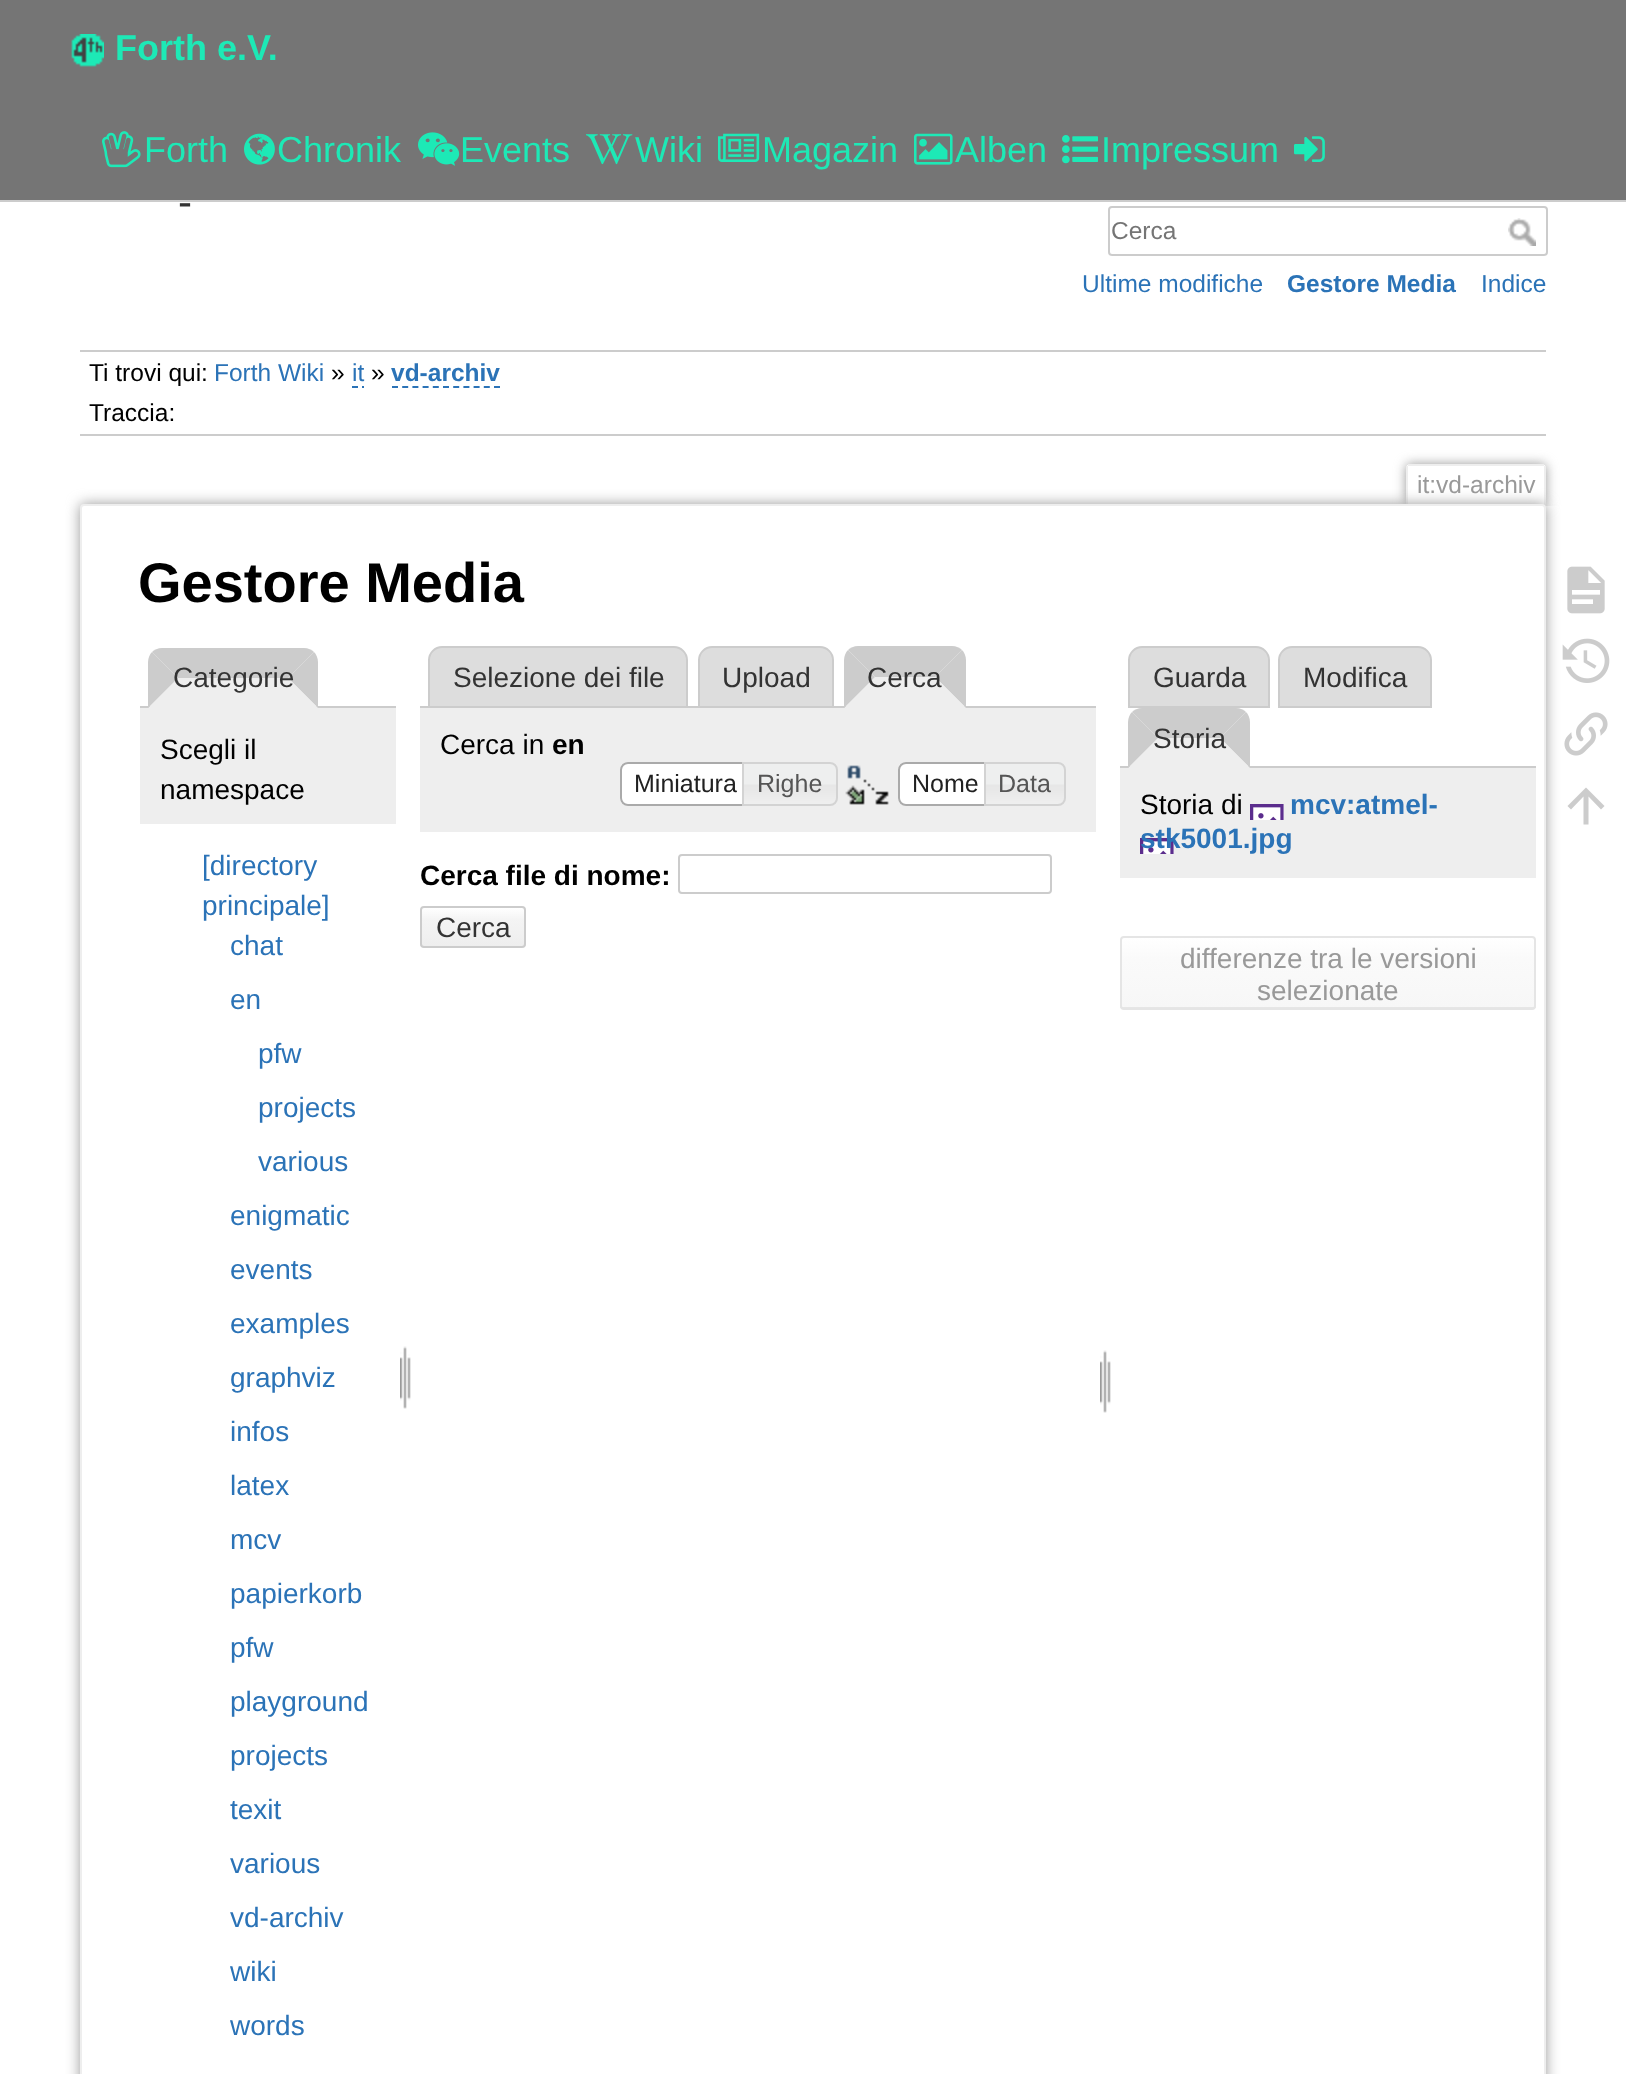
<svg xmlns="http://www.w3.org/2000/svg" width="1626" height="2074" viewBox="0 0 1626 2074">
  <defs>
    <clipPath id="clip1"><path d="M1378 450h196v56H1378z"/></clipPath>
    <clipPath id="clip2"><path d="M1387 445H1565V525H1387ZM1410 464H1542C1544 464 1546 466 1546 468V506H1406V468C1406 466 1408 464 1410 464Z" clip-rule="evenodd"/></clipPath>
    <clipPath id="clip3"><rect x="420" y="906" width="106" height="42" rx="4"/></clipPath>
    <linearGradient id="g1" gradientUnits="userSpaceOnUse" x1="473" y1="908" x2="473" y2="946"><stop offset="0" stop-color="#fff"/><stop offset="0.3" stop-color="#f4f4f4"/><stop offset="0.99" stop-color="#eee"/><stop offset="0.99" stop-color="#ccc"/></linearGradient>
    <clipPath id="clip4"><rect x="1120" y="936" width="416" height="74" rx="4"/></clipPath>
    <linearGradient id="g2" gradientUnits="userSpaceOnUse" x1="1328" y1="938" x2="1328" y2="1008"><stop offset="0" stop-color="#fff"/><stop offset="0.3" stop-color="#fafafa"/><stop offset="0.99" stop-color="#f7f7f7"/><stop offset="0.99" stop-color="#e6e6e6"/></linearGradient>
  </defs>
  <rect width="100%" height="100%" fill="#fff"/>
  <path d="M0 0h1626v200H0z" fill="#757575"/>
  <path d="M0 200h1626v2H0z" fill="#ccc"/>
  <image x="71" y="34" width="33" height="33" href="img/1.png"/>
  <image x="102" y="131" width="39" height="37" href="img/2.png"/>
  <image x="244" y="133" width="31" height="32" href="img/3.png"/>
  <image x="418" y="132" width="42" height="34" href="img/4.png"/>
  <image x="586" y="134" width="47" height="31" href="img/5.png"/>
  <image x="718" y="133" width="42" height="29" href="img/6.png"/>
  <image x="914" y="133" width="39" height="32" href="img/7.png"/>
  <image x="1062" y="135" width="36" height="29" href="img/8.png"/>
  <image x="1294" y="136" width="31" height="26" href="img/9.png"/>
  <rect x="1109" y="207" width="438" height="48" rx="3" fill="none" stroke="#ccc" stroke-width="2"/>
  <image x="1508" y="218" width="28" height="28" href="img/10.png"/>
  <path d="M80 350h1466v2H80z" fill="#ccc"/>
  <path d="M352 387H358M362 387H364" fill="none" stroke="#2b73b7" stroke-width="2"/>
  <path d="M392 387H500" fill="none" stroke="#2b73b7" stroke-width="2" stroke-dasharray="6 4.2"/>
  <path d="M80 434h1466v2H80z" fill="#ccc"/>
  <g clip-path="url(#clip1)">
    <g clip-path="url(#clip2)">
      <rect x="1406" y="464" width="140" height="42" rx="4" fill="#999" filter="blur(6px)"/>
    </g>
  </g>
  <path d="M1408 464h136v2H1408z" fill="#eee"/>
  <path d="M1544 466h2v40H1544z" fill="#eee"/>
  <path d="M1406 466h2v40H1406z" fill="#eee"/>
  <rect x="80" y="504" width="1466" height="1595" rx="4" fill="#999" filter="blur(7px)"/>
  <rect x="81" y="505" width="1464" height="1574" rx="3" fill="#fff" stroke="#eee" stroke-width="2"/>
  <path d="M162 648H304C308 648 312 650 314 652L288 678H178L152 652C154 650 158 648 162 648Z" fill="#ccc"/>
  <path d="M140 706h256v2H140z" fill="#ccc"/>
  <path d="M314 652L288 678L318 708V662C318 658 316 654 314 652Z" fill="#ccc"/>
  <path d="M318 708L288 678H178L148 708Z" fill="#eee"/>
  <path d="M148 708V662C148 658 150 654 152 652L178 678Z" fill="#ccc"/>
  <path d="M140 708h256v116H140z" fill="#eee"/>
  <image x="400" y="1346" width="11" height="63" href="img/11.png"/>
  <path d="M442 647H674C681 647 687 653 687 660V707H429V660C429 653 435 647 442 647Z" fill="#ddd" stroke="#ccc" stroke-width="2"/>
  <path d="M712 647H820C827 647 833 653 833 660V707H699V660C699 653 705 647 712 647Z" fill="#ddd" stroke="#ccc" stroke-width="2"/>
  <path d="M858 646H952C956 646 960 648 962 650L935 677H875L848 650C850 648 854 646 858 646Z" fill="#ccc"/>
  <path d="M420 706h676v2H420z" fill="#ccc"/>
  <path d="M962 650L935 677L966 708V660C966 656 964 652 962 650Z" fill="#ccc"/>
  <path d="M966 708L935 677H875L844 708Z" fill="#eee"/>
  <path d="M844 708V660C844 656 846 652 848 650L875 677Z" fill="#ccc"/>
  <path d="M420 708h676v124H420z" fill="#eee"/>
  <path d="M628 762H752V806H628C623.5 806 620 802.5 620 798V770C620 765.5 623.5 762 628 762Z" fill="#fff"/>
  <image x="620" y="762" width="6" height="44" href="img/12.png"/>
  <path d="M628 763H751V805H628C624 805 621 802 621 798V770C621 766 624 763 628 763Z" fill="none" stroke="#aaa" stroke-width="2"/>
  <image x="744" y="762" width="94" height="44" href="img/13.png"/>
  <path d="M743 763H830C834 763 837 766 837 770V798C837 802 834 805 830 805H743Z" fill="none" stroke="#d3d3d3" stroke-width="2"/>
  <image x="845" y="765" width="44" height="40" href="img/14.png"/>
  <path d="M906 762H994V806H906C901.5 806 898 802.5 898 798V770C898 765.5 901.5 762 906 762Z" fill="#fff"/>
  <image x="898" y="762" width="6" height="44" href="img/12.png"/>
  <path d="M906 763H993V805H906C902 805 899 802 899 798V770C899 766 902 763 906 763Z" fill="none" stroke="#aaa" stroke-width="2"/>
  <image x="986" y="762" width="80" height="44" href="img/15.png"/>
  <path d="M985 763H1058C1062 763 1065 766 1065 770V798C1065 802 1062 805 1058 805H985Z" fill="none" stroke="#d3d3d3" stroke-width="2"/>
  <rect x="679" y="855" width="372" height="38" rx="3" fill="none" stroke="#ccc" stroke-width="2"/>
  <g clip-path="url(#clip3)">
    <path d="M420 908h106v38H420z" fill="url(#g1)"/>
  </g>
  <rect x="421" y="907" width="104" height="40" rx="3" fill="none" stroke="#ccc" stroke-width="2"/>
  <image x="1100" y="1350" width="11" height="63" href="img/11.png"/>
  <path d="M1142 647H1256C1263 647 1269 653 1269 660V707H1129V660C1129 653 1135 647 1142 647Z" fill="#ddd" stroke="#ccc" stroke-width="2"/>
  <path d="M1292 647H1418C1425 647 1431 653 1431 660V707H1279V660C1279 653 1285 647 1292 647Z" fill="#ddd" stroke="#ccc" stroke-width="2"/>
  <path d="M1142 708H1236C1240 708 1244 710 1246 712L1220 738H1158L1132 712C1134 710 1138 708 1142 708Z" fill="#ccc"/>
  <path d="M1120 766h416v2H1120z" fill="#ccc"/>
  <path d="M1246 712L1220 738L1250 768V722C1250 718 1248 714 1246 712Z" fill="#ccc"/>
  <path d="M1250 768L1220 738H1158L1128 768Z" fill="#eee"/>
  <path d="M1128 768V722C1128 718 1130 714 1132 712L1158 738Z" fill="#ccc"/>
  <path d="M1120 768h416v110H1120z" fill="#eee"/>
  <g clip-path="url(#clip4)">
    <path d="M1120 938h416v70H1120z" fill="url(#g2)"/>
  </g>
  <rect x="1121" y="937" width="414" height="72" rx="3" fill="none" stroke="#e5e5e5" stroke-width="2"/>
  <image x="1567" y="566" width="38" height="48" href="img/17.png"/>
  <image x="1562" y="638" width="48" height="45" href="img/18.png"/>
  <image x="1564" y="712" width="44" height="44" href="img/19.png"/>
  <path d="M1588.5 824.5H1583.5V796.5L1571 809.5L1567.5 806L1586 787.5L1604.5 806L1601 809.5L1588.5 796.5Z" fill="#ccc"/>
  <text x="115" y="60" font-family="Liberation Sans" font-size="36" font-weight="bold" fill="#1de9b6">Forth e.V.</text>
  <g font-family="Liberation Sans" font-size="36" fill="#1de9b6">
    <text x="144" y="162">Forth</text>
    <text x="277" y="162">Chronik</text>
    <text x="460" y="162">Events</text>
    <text x="635" y="162">Wiki</text>
    <text x="762" y="162">Magazin</text>
    <text x="955" y="162">Alben</text>
    <text x="1101" y="162">Impressum</text>
  </g>
  <text x="178" y="216" font-family="Liberation Sans" font-size="42" fill="#333">-</text>
  <text x="1111" y="239" font-family="Liberation Sans" font-size="24.5" fill="#757575">Cerca</text>
  <text x="1082" y="292" font-family="Liberation Sans" font-size="24.5" fill="#2b73b7">Ultime modifiche</text>
  <text x="1287" y="292" font-family="Liberation Sans" font-size="24.5" font-weight="bold" fill="#2b73b7">Gestore Media</text>
  <text x="1481" y="292" font-family="Liberation Sans" font-size="24.5" fill="#2b73b7">Indice</text>
  <text x="89" y="381" font-family="Liberation Sans" font-size="24.5" fill="#000">Ti trovi qui:</text>
  <text x="214" y="381" font-family="Liberation Sans" font-size="24.5" fill="#2b73b7">Forth Wiki</text>
  <text x="331" y="381" font-family="Liberation Sans" font-size="24.5" fill="#000">»</text>
  <text x="352" y="381" font-family="Liberation Sans" font-size="24.5" fill="#2b73b7">it</text>
  <text x="371" y="381" font-family="Liberation Sans" font-size="24.5" fill="#000">»</text>
  <text x="391" y="381" font-family="Liberation Sans" font-size="24.5" font-weight="bold" fill="#2b73b7">vd-archiv</text>
  <text x="89" y="421" font-family="Liberation Sans" font-size="24.5" fill="#000">Traccia:</text>
  <text x="1417" y="493" font-family="Liberation Sans" font-size="24.5" fill="#999">it:vd-archiv</text>
  <text x="138" y="602" font-family="Liberation Sans" font-size="56" font-weight="bold" fill="#000">Gestore Media</text>
  <text x="173" y="687" font-family="Liberation Sans" font-size="28" fill="#333">Categorie</text>
  <g font-family="Liberation Sans" font-size="28" fill="#000">
    <text x="160" y="759">Scegli il</text>
    <text x="160" y="799">namespace</text>
  </g>
  <g font-family="Liberation Sans" font-size="28" fill="#2b73b7">
    <text x="202" y="875">[directory</text>
    <text x="202" y="915">principale]</text>
    <text x="230" y="955">chat</text>
    <text x="230" y="1009">en</text>
    <text x="258" y="1063">pfw</text>
    <text x="258" y="1117">projects</text>
    <text x="258" y="1171">various</text>
    <text x="230" y="1225">enigmatic</text>
    <text x="230" y="1279">events</text>
    <text x="230" y="1333">examples</text>
    <text x="230" y="1387">graphviz</text>
    <text x="230" y="1441">infos</text>
    <text x="230" y="1495">latex</text>
    <text x="230" y="1549">mcv</text>
    <text x="230" y="1603">papierkorb</text>
    <text x="230" y="1657">pfw</text>
    <text x="230" y="1711">playground</text>
    <text x="230" y="1765">projects</text>
    <text x="230" y="1819">texit</text>
    <text x="230" y="1873">various</text>
    <text x="230" y="1927">vd-archiv</text>
    <text x="230" y="1981">wiki</text>
    <text x="230" y="2035">words</text>
  </g>
  <g font-family="Liberation Sans" font-size="28" fill="#333">
    <text x="453" y="687">Selezione dei file</text>
    <text x="722" y="687">Upload</text>
    <text x="867" y="687">Cerca</text>
  </g>
  <text x="440" y="754" font-family="Liberation Sans" font-size="28" fill="#000">Cerca in</text>
  <text x="552" y="754" font-family="Liberation Sans" font-size="28" font-weight="bold" fill="#000">en</text>
  <text x="634" y="792" font-family="Liberation Sans" font-size="25" fill="#212121">Miniatura</text>
  <text x="757" y="792" font-family="Liberation Sans" font-size="25" fill="#555">Righe</text>
  <text x="912" y="792" font-family="Liberation Sans" font-size="25" fill="#212121">Nome</text>
  <text x="998" y="792" font-family="Liberation Sans" font-size="25" fill="#555">Data</text>
  <text x="420" y="885" font-family="Liberation Sans" font-size="28" font-weight="bold" fill="#000">Cerca file di nome:</text>
  <g font-family="Liberation Sans" font-size="28" fill="#333">
    <text x="436" y="937">Cerca</text>
    <text x="1153" y="687">Guarda</text>
    <text x="1303" y="687">Modifica</text>
    <text x="1153" y="748">Storia</text>
  </g>
  <text x="1140" y="814" font-family="Liberation Sans" font-size="28" fill="#000">Storia di</text>
  <text x="1290" y="814" font-family="Liberation Sans" font-size="28" font-weight="bold" fill="#2b73b7">mcv:atmel-</text>
  <image x="1140" y="804" width="144" height="50" href="img/16.png"/>
  <text x="1140" y="848" font-family="Liberation Sans" font-size="28" font-weight="bold" fill="#2b73b7">stk5001.jpg</text>
  <g font-family="Liberation Sans" font-size="28" fill="#999">
    <text x="1180" y="968">differenze tra le versioni</text>
    <text x="1257" y="1000">selezionate</text>
  </g>
</svg>
